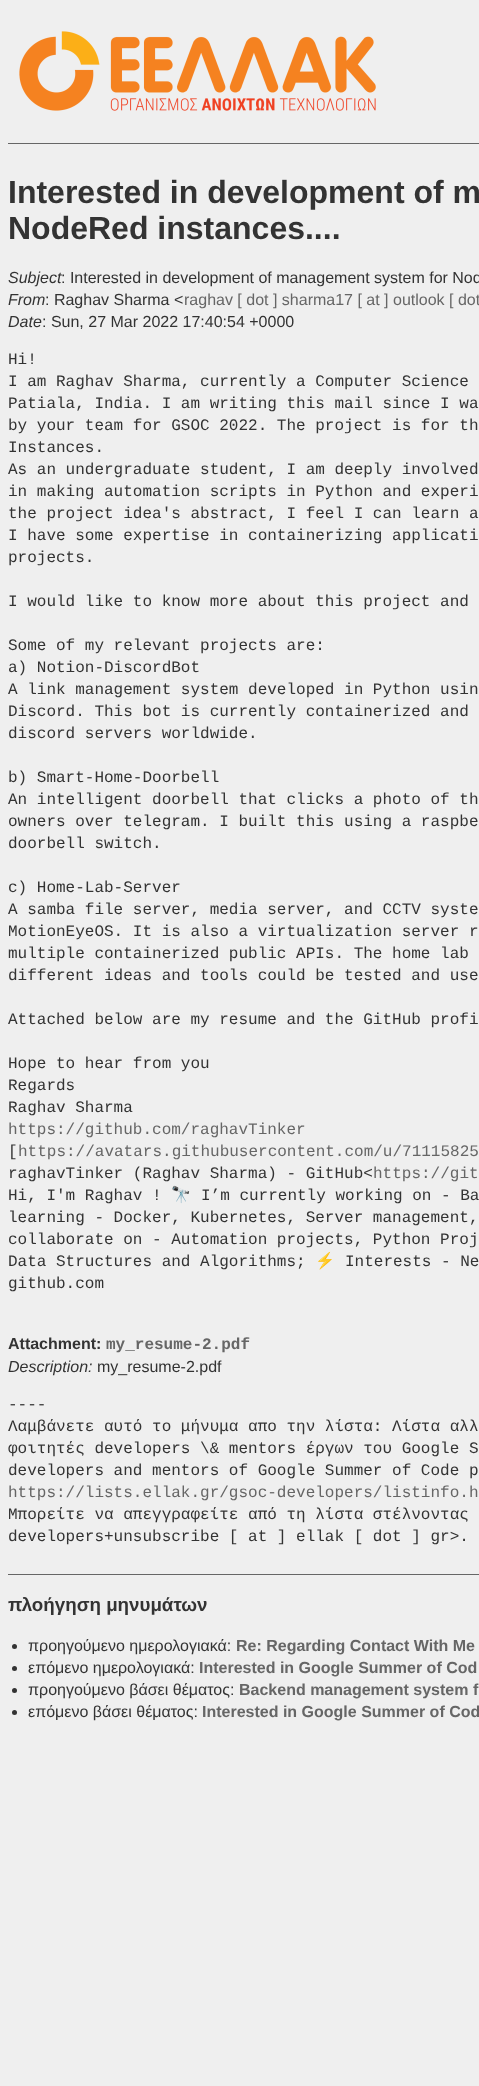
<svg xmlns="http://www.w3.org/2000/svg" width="479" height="2086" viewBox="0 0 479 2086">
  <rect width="100%" height="100%" fill="#efefef"/>
  <path d="M8 143h471v1H8z" fill="#666"/>
  <image x="19" y="31" width="357" height="80" href="img/1.png"/>
  <path d="M8 1574h471v1H8z" fill="#666"/>
  <circle cx="14.5" cy="1646.5" r="2.5" fill="#333"/>
  <circle cx="14.5" cy="1668.5" r="2.5" fill="#333"/>
  <circle cx="14.5" cy="1690.5" r="2.5" fill="#333"/>
  <circle cx="14.5" cy="1712.5" r="2.5" fill="#333"/>
  <g font-family="Liberation Sans" font-size="32" font-weight="bold" fill="#333">
    <text x="8" y="203">Interested in development of m</text>
    <text x="8" y="239">NodeRed instances....</text>
  </g>
  <text x="8" y="283" font-family="Liberation Sans" font-size="16" font-style="italic" fill="#333">Subject</text>
  <text x="61" y="283" font-family="Liberation Sans" font-size="16" fill="#333">: Interested in development of management system for Nod</text>
  <text x="8" y="305" font-family="Liberation Sans" font-size="16" font-style="italic" fill="#333">From</text>
  <text x="45" y="305" font-family="Liberation Sans" font-size="16" fill="#333">: Raghav Sharma &lt;</text>
  <text x="184" y="305" font-family="Liberation Sans" font-size="16" fill="#666">raghav [ dot ] sharma17 [ at ] outlook [ dot</text>
  <text x="8" y="327" font-family="Liberation Sans" font-size="16" font-style="italic" fill="#333">Date</text>
  <text x="42" y="327" font-family="Liberation Sans" font-size="16" fill="#333">: Sun, 27 Mar 2022 17:40:54 +0000</text>
  <g font-family="Liberation Mono" font-size="16" fill="#333">
    <text x="8" y="364">Hi!</text>
    <text x="8" y="386">I am Raghav Sharma, currently a Computer Science</text>
    <text x="8" y="408">Patiala, India. I am writing this mail since I wa</text>
    <text x="8" y="430">by your team for GSOC 2022. The project is for th</text>
    <text x="8" y="452">Instances.</text>
    <text x="8" y="474">As an undergraduate student, I am deeply involved</text>
    <text x="8" y="496">in making automation scripts in Python and experi</text>
    <text x="8" y="518">the project idea's abstract, I feel I can learn a</text>
    <text x="8" y="540">I have some expertise in containerizing applicati</text>
    <text x="8" y="562">projects.</text>
    <text x="8" y="606">I would like to know more about this project and</text>
    <text x="8" y="650">Some of my relevant projects are:</text>
    <text x="8" y="672">a) Notion-DiscordBot</text>
    <text x="8" y="694">A link management system developed in Python usin</text>
    <text x="8" y="716">Discord. This bot is currently containerized and</text>
    <text x="8" y="738">discord servers worldwide.</text>
    <text x="8" y="782">b) Smart-Home-Doorbell</text>
    <text x="8" y="804">An intelligent doorbell that clicks a photo of th</text>
    <text x="8" y="826">owners over telegram. I built this using a raspbe</text>
    <text x="8" y="848">doorbell switch.</text>
    <text x="8" y="892">c) Home-Lab-Server</text>
    <text x="8" y="914">A samba file server, media server, and CCTV syste</text>
    <text x="8" y="936">MotionEyeOS. It is also a virtualization server r</text>
    <text x="8" y="958">multiple containerized public APIs. The home lab</text>
    <text x="8" y="980">different ideas and tools could be tested and use</text>
    <text x="8" y="1024">Attached below are my resume and the GitHub profi</text>
    <text x="8" y="1068">Hope to hear from you</text>
    <text x="8" y="1090">Regards</text>
    <text x="8" y="1112">Raghav Sharma</text>
  </g>
  <text x="8" y="1134" font-family="Liberation Mono" font-size="16" fill="#666">https://github.com/raghavTinker</text>
  <text x="8" y="1156" font-family="Liberation Mono" font-size="16" fill="#333">[</text>
  <text x="18" y="1156" font-family="Liberation Mono" font-size="16" fill="#666">https://avatars.githubusercontent.com/u/71115825</text>
  <text x="8" y="1178" font-family="Liberation Mono" font-size="16" fill="#333">raghavTinker (Raghav Sharma) - GitHub&lt;</text>
  <text x="373" y="1178" font-family="Liberation Mono" font-size="16" fill="#666">https://git</text>
  <text x="8" y="1200" font-family="Liberation Mono" font-size="16" fill="#333">Hi, I'm Raghav !</text>
  <text x="171" y="1200" font-family="Noto Color Emoji" font-size="16" fill="#333">🔭</text>
  <g font-family="Liberation Mono" font-size="16" fill="#333">
    <text x="201" y="1200">I’m currently working on - Ba</text>
    <text x="8" y="1222">learning - Docker, Kubernetes, Server management,</text>
    <text x="8" y="1244">collaborate on - Automation projects, Python Proj</text>
    <text x="8" y="1266">Data Structures and Algorithms;</text>
  </g>
  <text x="315" y="1266" font-family="Noto Color Emoji" font-size="16" fill="#333">⚡️</text>
  <g font-family="Liberation Mono" font-size="16" fill="#333">
    <text x="345" y="1266">Interests - Ne</text>
    <text x="8" y="1288">github.com</text>
  </g>
  <text x="8" y="1349" font-family="Liberation Sans" font-size="16" font-weight="bold" fill="#333">Attachment:</text>
  <text x="106" y="1349" font-family="Liberation Mono" font-size="16" font-weight="bold" fill="#666">my_resume-2.pdf</text>
  <text x="8" y="1372" font-family="Liberation Sans" font-size="16" font-style="italic" fill="#333">Description:</text>
  <text x="97" y="1372" font-family="Liberation Sans" font-size="16" fill="#333">my_resume-2.pdf</text>
  <g font-family="Liberation Mono" font-size="16" fill="#333">
    <text x="8" y="1409">----</text>
    <text x="8" y="1431">Λαμβάνετε αυτό το μήνυμα απο την λίστα: Λίστα αλλ</text>
    <text x="8" y="1453">φοιτητές developers \&amp; mentors έργων του Google S</text>
    <text x="8" y="1475">developers and mentors of Google Summer of Code p</text>
  </g>
  <text x="8" y="1497" font-family="Liberation Mono" font-size="16" fill="#666">https://lists.ellak.gr/gsoc-developers/listinfo.h</text>
  <g font-family="Liberation Mono" font-size="16" fill="#333">
    <text x="8" y="1519">Μπορείτε να απεγγραφείτε από τη λίστα στέλνοντας</text>
    <text x="8" y="1541">developers+unsubscribe [ at ] ellak [ dot ] gr&gt;.</text>
  </g>
  <text x="8" y="1611" font-family="Liberation Sans" font-size="18.75" font-weight="bold" fill="#333">πλοήγηση μηνυμάτων</text>
  <text x="28" y="1651" font-family="Liberation Sans" font-size="16" fill="#333">προηγούμενο ημερολογιακά:</text>
  <text x="236" y="1651" font-family="Liberation Sans" font-size="16" font-weight="bold" fill="#666">Re: Regarding Contact With Me</text>
  <text x="28" y="1673" font-family="Liberation Sans" font-size="16" fill="#333">επόμενο ημερολογιακά:</text>
  <text x="199" y="1673" font-family="Liberation Sans" font-size="16" font-weight="bold" fill="#666">Interested in Google Summer of Cod</text>
  <text x="28" y="1695" font-family="Liberation Sans" font-size="16" fill="#333">προηγούμενο βάσει θέματος:</text>
  <text x="239" y="1695" font-family="Liberation Sans" font-size="16" font-weight="bold" fill="#666">Backend management system f</text>
  <text x="28" y="1717" font-family="Liberation Sans" font-size="16" fill="#333">επόμενο βάσει θέματος:</text>
  <text x="202" y="1717" font-family="Liberation Sans" font-size="16" font-weight="bold" fill="#666">Interested in Google Summer of Cod</text>
</svg>
